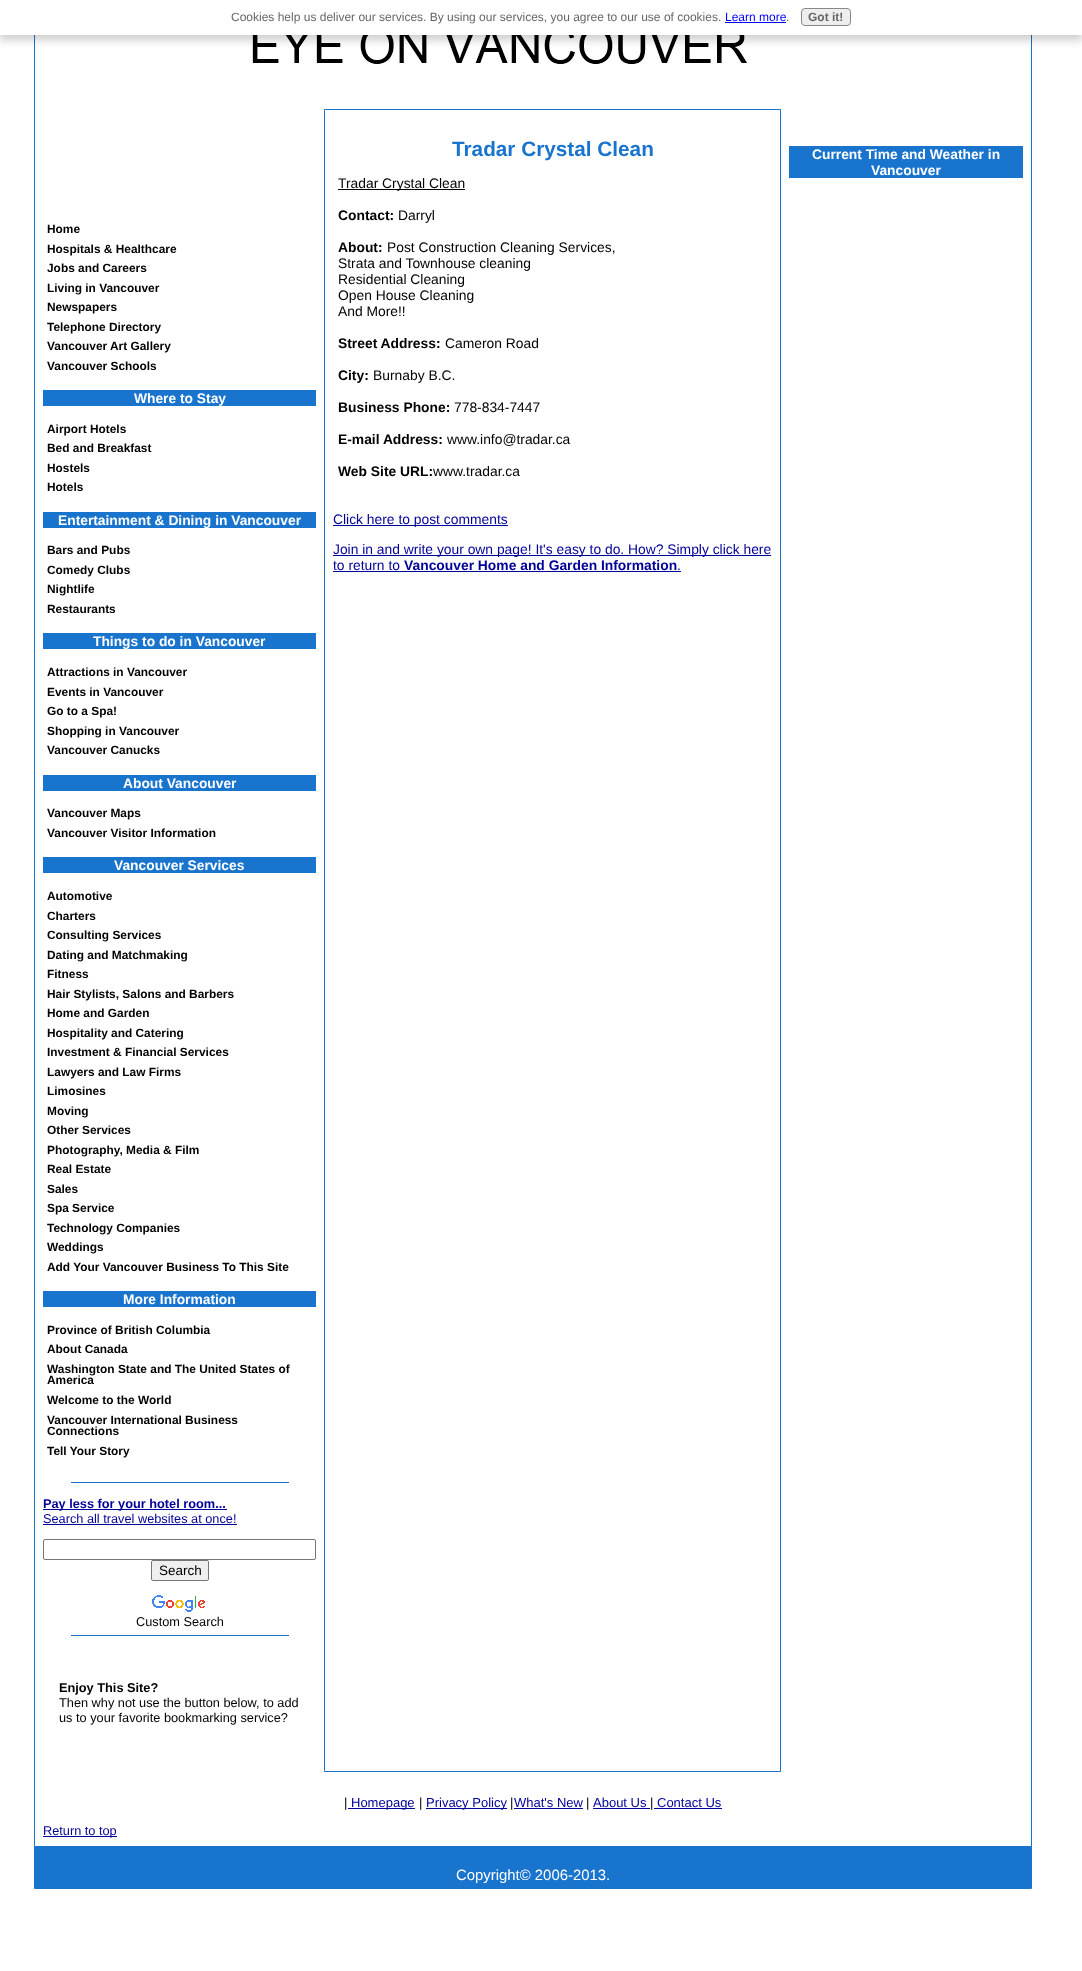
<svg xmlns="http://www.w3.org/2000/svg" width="1082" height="1971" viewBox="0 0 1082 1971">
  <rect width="100%" height="100%" fill="#fff"/>
  <path d="M34.5 8.5h997v1880H34.5z" fill="none" stroke="#1874cd"/>
  <image x="252" y="35" width="496" height="29" href="img/1.png"/>
  <path d="M-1 3h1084v37H-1z" fill="#00000033" filter="blur(5px)"/>
  <path d="M0 0h1082v35H0z" fill="#fff"/>
  <path d="M725 22h61v1H725z" fill="#00f"/>
  <rect x="801.5" y="8.5" width="49" height="17" rx="3.5" fill="#eee" stroke="#888"/>
  <path d="M43 390h273v16H43z" fill="#1874cd"/>
  <path d="M43 512h273v16H43z" fill="#1874cd"/>
  <path d="M43 633h273v16H43z" fill="#1874cd"/>
  <path d="M43 775h273v16H43z" fill="#1874cd"/>
  <path d="M43 857h273v16H43z" fill="#1874cd"/>
  <path d="M43 1291h273v16H43z" fill="#1874cd"/>
  <path d="M71 1482h218v1H71z" fill="#1874cd"/>
  <path d="M43 1509h184v1H43z" fill="#009"/>
  <path d="M43 1524h194v1H43z" fill="#009"/>
  <rect x="43.5" y="1539.5" width="272" height="20" rx="1.5" fill="none" stroke="#767676"/>
  <rect x="151.5" y="1560.5" width="57" height="20" rx="1.5" fill="#efefef" stroke="#767676"/>
  <image x="152" y="1595" width="53" height="17" href="img/2.png"/>
  <path d="M71 1635h218v1H71z" fill="#1874cd"/>
  <path d="M324.5 109.5h456v1662H324.5z" fill="none" stroke="#1874cd"/>
  <path d="M338 189h127v1H338z" fill="#000"/>
  <path d="M333 525h175v1H333z" fill="#009"/>
  <path d="M333 555h438v1H333z" fill="#009"/>
  <path d="M333 571h348v1H333z" fill="#009"/>
  <path d="M789 146h234v32H789z" fill="#1874cd"/>
  <path d="M348 1808h67v1H348z" fill="#009"/>
  <path d="M426 1808h81v1H426z" fill="#009"/>
  <path d="M514 1808h69v1H514z" fill="#009"/>
  <path d="M593 1808h57v1H593z" fill="#009"/>
  <path d="M654 1808h68v1H654z" fill="#009"/>
  <path d="M43 1836h74v1H43z" fill="#009"/>
  <path d="M35 1846h996v42H35z" fill="#1874cd"/>
  <text x="231" y="21" font-family="Liberation Sans" font-size="12" fill="#666">Cookies help us deliver our services. By using our services, you agree to our use of cookies.</text>
  <text x="725" y="21" font-family="Liberation Sans" font-size="12" fill="#00f">Learn more</text>
  <text x="786" y="21" font-family="Liberation Sans" font-size="12" fill="#666">.</text>
  <text x="808" y="21" font-family="Liberation Sans" font-size="12" font-weight="bold" fill="#666">Got it!</text>
  <g font-family="Liberation Sans" font-size="11.9" font-weight="bold" fill="#000">
    <text x="47" y="233">Home</text>
    <text x="47" y="253">Hospitals &amp; Healthcare</text>
    <text x="47" y="272">Jobs and Careers</text>
    <text x="47" y="292">Living in Vancouver</text>
    <text x="47" y="311">Newspapers</text>
    <text x="47" y="331">Telephone Directory</text>
    <text x="47" y="350">Vancouver Art Gallery</text>
    <text x="47" y="370">Vancouver Schools</text>
  </g>
  <text x="134" y="403" font-family="Liberation Sans" font-size="13.8" font-weight="bold" fill="#fff">Where to Stay</text>
  <g font-family="Liberation Sans" font-size="11.9" font-weight="bold" fill="#000">
    <text x="47" y="433">Airport Hotels</text>
    <text x="47" y="452">Bed and Breakfast</text>
    <text x="47" y="472">Hostels</text>
    <text x="47" y="491">Hotels</text>
  </g>
  <text x="58" y="525" font-family="Liberation Sans" font-size="13.8" font-weight="bold" fill="#fff">Entertainment &amp; Dining in Vancouver</text>
  <g font-family="Liberation Sans" font-size="11.9" font-weight="bold" fill="#000">
    <text x="47" y="554">Bars and Pubs</text>
    <text x="47" y="574">Comedy Clubs</text>
    <text x="47" y="593">Nightlife</text>
    <text x="47" y="613">Restaurants</text>
  </g>
  <text x="93" y="646" font-family="Liberation Sans" font-size="13.8" font-weight="bold" fill="#fff">Things to do in Vancouver</text>
  <g font-family="Liberation Sans" font-size="11.9" font-weight="bold" fill="#000">
    <text x="47" y="676">Attractions in Vancouver</text>
    <text x="47" y="696">Events in Vancouver</text>
    <text x="47" y="715">Go to a Spa!</text>
    <text x="47" y="735">Shopping in Vancouver</text>
    <text x="47" y="754">Vancouver Canucks</text>
  </g>
  <text x="123" y="788" font-family="Liberation Sans" font-size="13.8" font-weight="bold" fill="#fff">About Vancouver</text>
  <g font-family="Liberation Sans" font-size="11.9" font-weight="bold" fill="#000">
    <text x="47" y="817">Vancouver Maps</text>
    <text x="47" y="837">Vancouver Visitor Information</text>
  </g>
  <text x="114" y="870" font-family="Liberation Sans" font-size="13.8" font-weight="bold" fill="#fff">Vancouver Services</text>
  <g font-family="Liberation Sans" font-size="11.9" font-weight="bold" fill="#000">
    <text x="47" y="900">Automotive</text>
    <text x="47" y="920">Charters</text>
    <text x="47" y="939">Consulting Services</text>
    <text x="47" y="959">Dating and Matchmaking</text>
    <text x="47" y="978">Fitness</text>
    <text x="47" y="998">Hair Stylists, Salons and Barbers</text>
    <text x="47" y="1017">Home and Garden</text>
    <text x="47" y="1037">Hospitality and Catering</text>
    <text x="47" y="1056">Investment &amp; Financial Services</text>
    <text x="47" y="1076">Lawyers and Law Firms</text>
    <text x="47" y="1095">Limosines</text>
    <text x="47" y="1115">Moving</text>
    <text x="47" y="1134">Other Services</text>
    <text x="47" y="1154">Photography, Media &amp; Film</text>
    <text x="47" y="1173">Real Estate</text>
    <text x="47" y="1193">Sales</text>
    <text x="47" y="1212">Spa Service</text>
    <text x="47" y="1232">Technology Companies</text>
    <text x="47" y="1251">Weddings</text>
    <text x="47" y="1271">Add Your Vancouver Business To This Site</text>
  </g>
  <text x="123" y="1304" font-family="Liberation Sans" font-size="13.8" font-weight="bold" fill="#fff">More Information</text>
  <g font-family="Liberation Sans" font-size="11.9" font-weight="bold" fill="#000">
    <text x="47" y="1334">Province of British Columbia</text>
    <text x="47" y="1353">About Canada</text>
    <text x="47" y="1373">Washington State and The United States of</text>
    <text x="47" y="1384">America</text>
    <text x="47" y="1404">Welcome to the World</text>
    <text x="47" y="1424">Vancouver International Business</text>
    <text x="47" y="1435">Connections</text>
    <text x="47" y="1455">Tell Your Story</text>
  </g>
  <text x="43" y="1508" font-family="Liberation Sans" font-size="12.75" font-weight="bold" fill="#009">Pay less for your hotel room...</text>
  <text x="43" y="1523" font-family="Liberation Sans" font-size="12.75" fill="#009">Search all travel websites at once!</text>
  <text x="159" y="1575" font-family="Liberation Sans" font-size="13.5" fill="#000">Search</text>
  <text x="136" y="1626" font-family="Liberation Sans" font-size="12.75" fill="#000">Custom Search</text>
  <text x="59" y="1692" font-family="Liberation Sans" font-size="12.75" font-weight="bold" fill="#000">Enjoy This Site?</text>
  <g font-family="Liberation Sans" font-size="12.75" fill="#000">
    <text x="59" y="1707">Then why not use the button below, to add</text>
    <text x="59" y="1722">us to your favorite bookmarking service?</text>
  </g>
  <text x="452" y="156" font-family="Liberation Sans" font-size="20.75" font-weight="bold" fill="#1874cd">Tradar Crystal Clean</text>
  <text x="338" y="188" font-family="Liberation Sans" font-size="13.85" fill="#000">Tradar Crystal Clean</text>
  <text x="338" y="220" font-family="Liberation Sans" font-size="13.85" font-weight="bold" fill="#000">Contact:</text>
  <text x="398" y="220" font-family="Liberation Sans" font-size="13.85" fill="#000">Darryl</text>
  <text x="338" y="252" font-family="Liberation Sans" font-size="13.85" font-weight="bold" fill="#000">About:</text>
  <g font-family="Liberation Sans" font-size="13.85" fill="#000">
    <text x="387" y="252">Post Construction Cleaning Services,</text>
    <text x="338" y="268">Strata and Townhouse cleaning</text>
    <text x="338" y="284">Residential Cleaning</text>
    <text x="338" y="300">Open House Cleaning</text>
    <text x="338" y="316">And More!!</text>
  </g>
  <text x="338" y="348" font-family="Liberation Sans" font-size="13.85" font-weight="bold" fill="#000">Street Address:</text>
  <text x="445" y="348" font-family="Liberation Sans" font-size="13.85" fill="#000">Cameron Road</text>
  <text x="338" y="380" font-family="Liberation Sans" font-size="13.85" font-weight="bold" fill="#000">City:</text>
  <text x="373" y="380" font-family="Liberation Sans" font-size="13.85" fill="#000">Burnaby B.C.</text>
  <text x="338" y="412" font-family="Liberation Sans" font-size="13.85" font-weight="bold" fill="#000">Business Phone:</text>
  <text x="454" y="412" font-family="Liberation Sans" font-size="13.85" fill="#000">778-834-7447</text>
  <text x="338" y="444" font-family="Liberation Sans" font-size="13.85" font-weight="bold" fill="#000">E-mail Address:</text>
  <text x="447" y="444" font-family="Liberation Sans" font-size="13.85" fill="#000">www.info@tradar.ca</text>
  <text x="338" y="476" font-family="Liberation Sans" font-size="13.85" font-weight="bold" fill="#000">Web Site URL:</text>
  <text x="433" y="476" font-family="Liberation Sans" font-size="13.85" fill="#000">www.tradar.ca</text>
  <g font-family="Liberation Sans" font-size="13.85" fill="#009">
    <text x="333" y="524">Click here to post comments</text>
    <text x="333" y="554">Join in and write your own page! It's easy to do. How? Simply click here</text>
    <text x="333" y="570">to return to</text>
  </g>
  <text x="404" y="570" font-family="Liberation Sans" font-size="13.85" font-weight="bold" fill="#009">Vancouver Home and Garden Information</text>
  <text x="677" y="570" font-family="Liberation Sans" font-size="13.85" fill="#009">.</text>
  <g font-family="Liberation Sans" font-size="13.8" font-weight="bold" fill="#fff">
    <text x="812" y="159">Current Time and Weather in</text>
    <text x="871" y="175">Vancouver</text>
  </g>
  <text x="344" y="1807" font-family="Liberation Sans" font-size="13" fill="#000">|</text>
  <text x="351" y="1807" font-family="Liberation Sans" font-size="13" fill="#009">Homepage</text>
  <text x="419" y="1807" font-family="Liberation Sans" font-size="13" fill="#000">|</text>
  <text x="426" y="1807" font-family="Liberation Sans" font-size="13" fill="#009">Privacy Policy</text>
  <text x="510" y="1807" font-family="Liberation Sans" font-size="13" fill="#000">|</text>
  <text x="514" y="1807" font-family="Liberation Sans" font-size="13" fill="#009">What's New</text>
  <text x="586" y="1807" font-family="Liberation Sans" font-size="13" fill="#000">|</text>
  <text x="593" y="1807" font-family="Liberation Sans" font-size="13" fill="#009">About Us</text>
  <text x="650" y="1807" font-family="Liberation Sans" font-size="13" fill="#000">|</text>
  <text x="657" y="1807" font-family="Liberation Sans" font-size="13" fill="#009">Contact Us</text>
  <text x="43" y="1835" font-family="Liberation Sans" font-size="12.75" fill="#009">Return to top</text>
  <text x="456" y="1880" font-family="Liberation Sans" font-size="14.9" fill="#fff">Copyright© 2006-2013.</text>
</svg>
